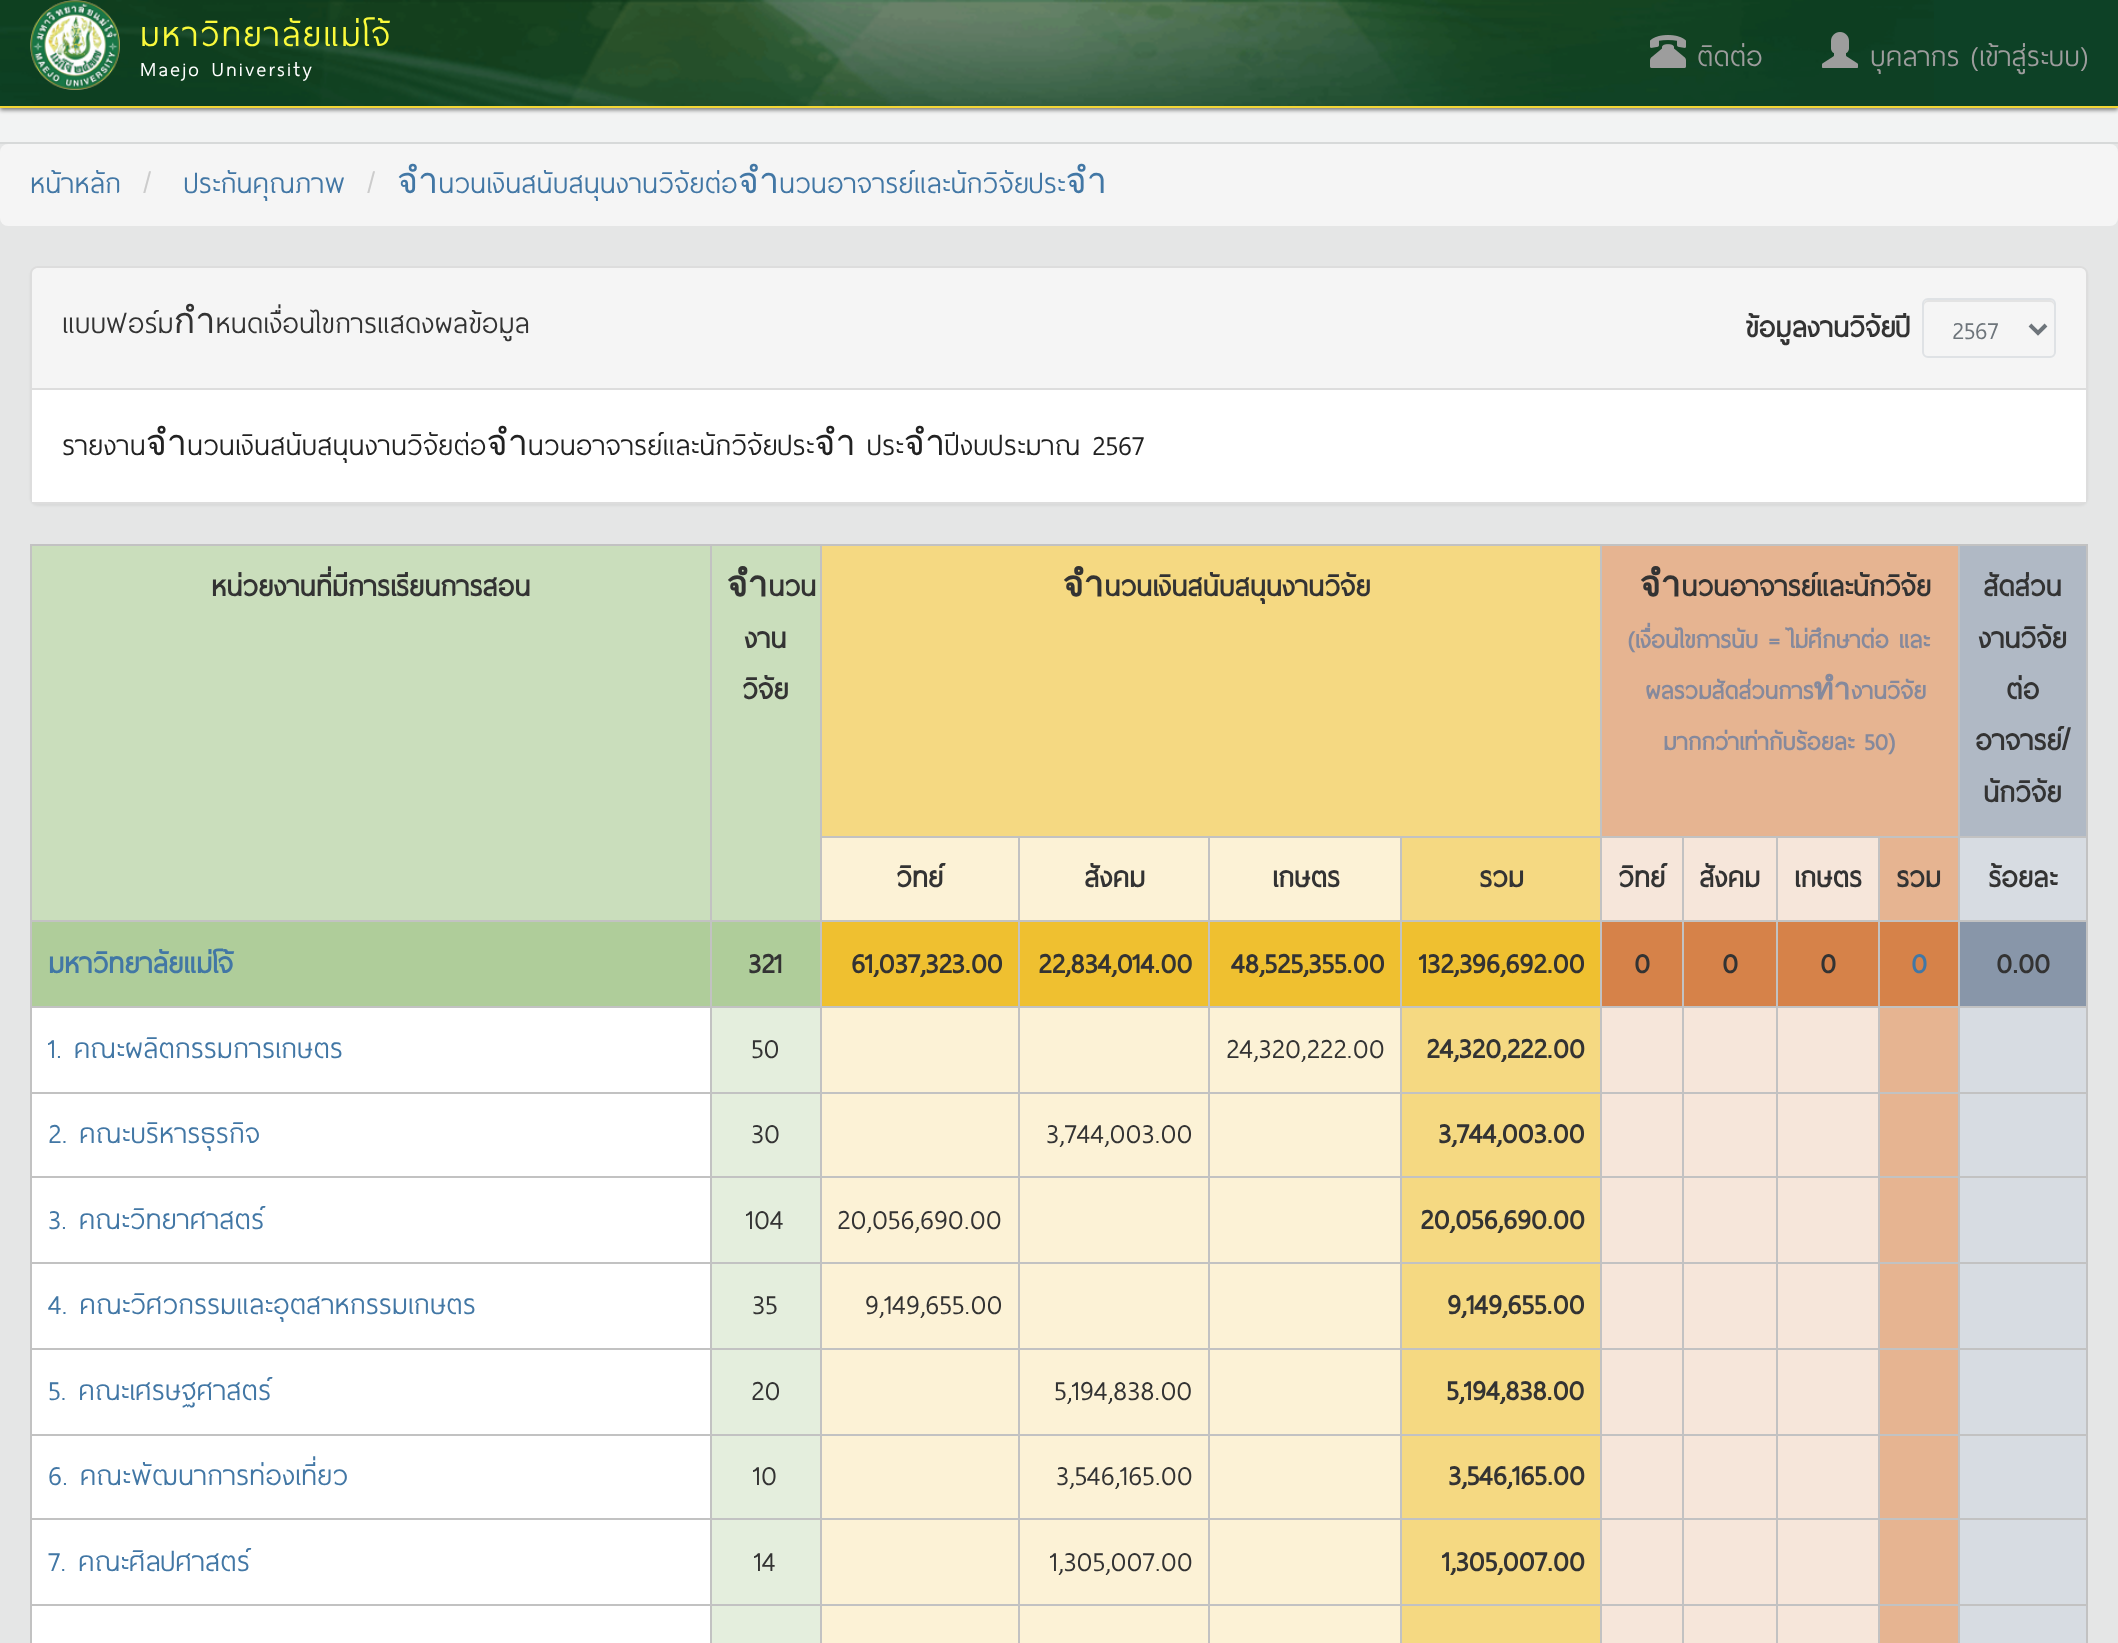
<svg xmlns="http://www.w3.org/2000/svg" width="2118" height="1643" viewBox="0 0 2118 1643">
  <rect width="100%" height="100%" fill="#e5e6e6"/>
  <path d="M0 108h2118v34H0z" fill="#f2f3f3"/>
  <path d="M0 2h2118v108H0z" fill="#00000080" filter="blur(2px)"/>
  <path d="M1934 0h184v106H1934z" fill="#0d4126"/>
  <image x="0" y="0" width="1934" height="106" href="img/1.png"/>
  <path d="M0 106h2118v2H0z" fill="#f3d634"/>
  <image x="30" y="0" width="90" height="90" href="img/2.png"/>
  <image x="1822" y="32" width="36" height="36" href="img/4.png"/>
  <path d="M0 142h2118v2H0z" fill="#d7d9d9"/>
  <rect y="144" width="2118" height="82" rx="8" fill="#f5f5f5"/>
  <rect x="30" y="268" width="2058" height="238" rx="8" fill="#0000000d" filter="blur(1px)"/>
  <rect x="31" y="267" width="2056" height="236" rx="7" fill="none" stroke="#ddd" stroke-width="2"/>
  <path d="M38 268H2080C2083.5 268 2086 270.5 2086 274V390H32V274C32 270.5 34.5 268 38 268Z" fill="#f5f5f5"/>
  <path d="M32 388h2054v2H32z" fill="#ddd"/>
  <path d="M1928 302H2050C2052 302 2054 304 2054 306V304C2054 302 2052 300 2050 300H1928C1926 300 1924 302 1924 304V306C1924 304 1926 302 1928 302Z" fill="#e3e3e3"/>
  <rect x="1923" y="299" width="132" height="58" rx="5" fill="none" stroke="#dfe2e5" stroke-width="2"/>
  <path d="M2030 325L2038 333L2046 325" fill="none" stroke="#6e757b" stroke-width="4"/>
  <path d="M32 390h2054v112H32z" fill="#fff"/>
  <path d="M32 1008h678v635H32z" fill="#fff"/>
  <path d="M30 544h2058v2H30z" fill="#c2c2c2"/>
  <path d="M2086 544h2v1099H2086z" fill="#c2c2c2"/>
  <path d="M30 544h2v1099H30z" fill="#c2c2c2"/>
  <path d="M32 546h678v374H32z" fill="#cadebc"/>
  <path d="M1958 1604h2v39H1958z" fill="#c2c2c2"/>
  <path d="M1958 1604h130v2H1958z" fill="#c2c2c2"/>
  <path d="M1958 1518h2v88H1958z" fill="#c2c2c2"/>
  <path d="M1958 1518h130v2H1958z" fill="#c2c2c2"/>
  <path d="M1958 1434h2v86H1958z" fill="#c2c2c2"/>
  <path d="M1958 1434h130v2H1958z" fill="#c2c2c2"/>
  <path d="M1958 1348h2v88H1958z" fill="#c2c2c2"/>
  <path d="M1958 1348h130v2H1958z" fill="#c2c2c2"/>
  <path d="M1958 1262h2v88H1958z" fill="#c2c2c2"/>
  <path d="M1958 1262h130v2H1958z" fill="#c2c2c2"/>
  <path d="M1958 1176h2v88H1958z" fill="#c2c2c2"/>
  <path d="M1958 1176h130v2H1958z" fill="#c2c2c2"/>
  <path d="M1958 1092h2v86H1958z" fill="#c2c2c2"/>
  <path d="M1958 1092h130v2H1958z" fill="#c2c2c2"/>
  <path d="M1958 1006h2v88H1958z" fill="#c2c2c2"/>
  <path d="M1958 1006h130v2H1958z" fill="#c2c2c2"/>
  <path d="M1958 920h2v88H1958z" fill="#c2c2c2"/>
  <path d="M1958 920h130v2H1958z" fill="#c2c2c2"/>
  <path d="M1958 836h2v86H1958z" fill="#c2c2c2"/>
  <path d="M1878 1604h2v39H1878z" fill="#c2c2c2"/>
  <path d="M1878 1604h82v2H1878z" fill="#c2c2c2"/>
  <path d="M1878 1518h2v88H1878z" fill="#c2c2c2"/>
  <path d="M1878 1518h82v2H1878z" fill="#c2c2c2"/>
  <path d="M1878 1434h2v86H1878z" fill="#c2c2c2"/>
  <path d="M1878 1434h82v2H1878z" fill="#c2c2c2"/>
  <path d="M1878 1348h2v88H1878z" fill="#c2c2c2"/>
  <path d="M1878 1348h82v2H1878z" fill="#c2c2c2"/>
  <path d="M1878 1262h2v88H1878z" fill="#c2c2c2"/>
  <path d="M1878 1262h82v2H1878z" fill="#c2c2c2"/>
  <path d="M1878 1176h2v88H1878z" fill="#c2c2c2"/>
  <path d="M1878 1176h82v2H1878z" fill="#c2c2c2"/>
  <path d="M1878 1092h2v86H1878z" fill="#c2c2c2"/>
  <path d="M1878 1092h82v2H1878z" fill="#c2c2c2"/>
  <path d="M1878 1006h2v88H1878z" fill="#c2c2c2"/>
  <path d="M1878 1006h82v2H1878z" fill="#c2c2c2"/>
  <path d="M1878 920h2v88H1878z" fill="#c2c2c2"/>
  <path d="M1878 920h82v2H1878z" fill="#c2c2c2"/>
  <path d="M1878 836h2v86H1878z" fill="#c2c2c2"/>
  <path d="M1776 1604h2v39H1776z" fill="#c2c2c2"/>
  <path d="M1776 1604h104v2H1776z" fill="#c2c2c2"/>
  <path d="M1776 1518h2v88H1776z" fill="#c2c2c2"/>
  <path d="M1776 1518h104v2H1776z" fill="#c2c2c2"/>
  <path d="M1776 1434h2v86H1776z" fill="#c2c2c2"/>
  <path d="M1776 1434h104v2H1776z" fill="#c2c2c2"/>
  <path d="M1776 1348h2v88H1776z" fill="#c2c2c2"/>
  <path d="M1776 1348h104v2H1776z" fill="#c2c2c2"/>
  <path d="M1776 1262h2v88H1776z" fill="#c2c2c2"/>
  <path d="M1776 1262h104v2H1776z" fill="#c2c2c2"/>
  <path d="M1776 1176h2v88H1776z" fill="#c2c2c2"/>
  <path d="M1776 1176h104v2H1776z" fill="#c2c2c2"/>
  <path d="M1776 1092h2v86H1776z" fill="#c2c2c2"/>
  <path d="M1776 1092h104v2H1776z" fill="#c2c2c2"/>
  <path d="M1776 1006h2v88H1776z" fill="#c2c2c2"/>
  <path d="M1776 1006h104v2H1776z" fill="#c2c2c2"/>
  <path d="M1776 920h2v88H1776z" fill="#c2c2c2"/>
  <path d="M1776 920h104v2H1776z" fill="#c2c2c2"/>
  <path d="M1776 836h2v86H1776z" fill="#c2c2c2"/>
  <path d="M1682 1604h2v39H1682z" fill="#c2c2c2"/>
  <path d="M1682 1604h96v2H1682z" fill="#c2c2c2"/>
  <path d="M1682 1518h2v88H1682z" fill="#c2c2c2"/>
  <path d="M1682 1518h96v2H1682z" fill="#c2c2c2"/>
  <path d="M1682 1434h2v86H1682z" fill="#c2c2c2"/>
  <path d="M1682 1434h96v2H1682z" fill="#c2c2c2"/>
  <path d="M1682 1348h2v88H1682z" fill="#c2c2c2"/>
  <path d="M1682 1348h96v2H1682z" fill="#c2c2c2"/>
  <path d="M1682 1262h2v88H1682z" fill="#c2c2c2"/>
  <path d="M1682 1262h96v2H1682z" fill="#c2c2c2"/>
  <path d="M1682 1176h2v88H1682z" fill="#c2c2c2"/>
  <path d="M1682 1176h96v2H1682z" fill="#c2c2c2"/>
  <path d="M1682 1092h2v86H1682z" fill="#c2c2c2"/>
  <path d="M1682 1092h96v2H1682z" fill="#c2c2c2"/>
  <path d="M1682 1006h2v88H1682z" fill="#c2c2c2"/>
  <path d="M1682 1006h96v2H1682z" fill="#c2c2c2"/>
  <path d="M1682 920h2v88H1682z" fill="#c2c2c2"/>
  <path d="M1682 920h96v2H1682z" fill="#c2c2c2"/>
  <path d="M1682 836h2v86H1682z" fill="#c2c2c2"/>
  <path d="M1600 1604h2v39H1600z" fill="#c2c2c2"/>
  <path d="M1600 1604h84v2H1600z" fill="#c2c2c2"/>
  <path d="M1600 1518h2v88H1600z" fill="#c2c2c2"/>
  <path d="M1600 1518h84v2H1600z" fill="#c2c2c2"/>
  <path d="M1600 1434h2v86H1600z" fill="#c2c2c2"/>
  <path d="M1600 1434h84v2H1600z" fill="#c2c2c2"/>
  <path d="M1600 1348h2v88H1600z" fill="#c2c2c2"/>
  <path d="M1600 1348h84v2H1600z" fill="#c2c2c2"/>
  <path d="M1600 1262h2v88H1600z" fill="#c2c2c2"/>
  <path d="M1600 1262h84v2H1600z" fill="#c2c2c2"/>
  <path d="M1600 1176h2v88H1600z" fill="#c2c2c2"/>
  <path d="M1600 1176h84v2H1600z" fill="#c2c2c2"/>
  <path d="M1600 1092h2v86H1600z" fill="#c2c2c2"/>
  <path d="M1600 1092h84v2H1600z" fill="#c2c2c2"/>
  <path d="M1600 1006h2v88H1600z" fill="#c2c2c2"/>
  <path d="M1600 1006h84v2H1600z" fill="#c2c2c2"/>
  <path d="M1600 920h2v88H1600z" fill="#c2c2c2"/>
  <path d="M1600 920h84v2H1600z" fill="#c2c2c2"/>
  <path d="M1600 836h2v86H1600z" fill="#c2c2c2"/>
  <path d="M1400 1604h2v39H1400z" fill="#c2c2c2"/>
  <path d="M1400 1604h202v2H1400z" fill="#c2c2c2"/>
  <path d="M1400 1518h2v88H1400z" fill="#c2c2c2"/>
  <path d="M1400 1518h202v2H1400z" fill="#c2c2c2"/>
  <path d="M1400 1434h2v86H1400z" fill="#c2c2c2"/>
  <path d="M1400 1434h202v2H1400z" fill="#c2c2c2"/>
  <path d="M1400 1348h2v88H1400z" fill="#c2c2c2"/>
  <path d="M1400 1348h202v2H1400z" fill="#c2c2c2"/>
  <path d="M1400 1262h2v88H1400z" fill="#c2c2c2"/>
  <path d="M1400 1262h202v2H1400z" fill="#c2c2c2"/>
  <path d="M1400 1176h2v88H1400z" fill="#c2c2c2"/>
  <path d="M1400 1176h202v2H1400z" fill="#c2c2c2"/>
  <path d="M1400 1092h2v86H1400z" fill="#c2c2c2"/>
  <path d="M1400 1092h202v2H1400z" fill="#c2c2c2"/>
  <path d="M1400 1006h2v88H1400z" fill="#c2c2c2"/>
  <path d="M1400 1006h202v2H1400z" fill="#c2c2c2"/>
  <path d="M1400 920h2v88H1400z" fill="#c2c2c2"/>
  <path d="M1400 920h202v2H1400z" fill="#c2c2c2"/>
  <path d="M1400 836h2v86H1400z" fill="#c2c2c2"/>
  <path d="M1208 1604h2v39H1208z" fill="#c2c2c2"/>
  <path d="M1208 1604h194v2H1208z" fill="#c2c2c2"/>
  <path d="M1208 1518h2v88H1208z" fill="#c2c2c2"/>
  <path d="M1208 1518h194v2H1208z" fill="#c2c2c2"/>
  <path d="M1208 1434h2v86H1208z" fill="#c2c2c2"/>
  <path d="M1208 1434h194v2H1208z" fill="#c2c2c2"/>
  <path d="M1208 1348h2v88H1208z" fill="#c2c2c2"/>
  <path d="M1208 1348h194v2H1208z" fill="#c2c2c2"/>
  <path d="M1208 1262h2v88H1208z" fill="#c2c2c2"/>
  <path d="M1208 1262h194v2H1208z" fill="#c2c2c2"/>
  <path d="M1208 1176h2v88H1208z" fill="#c2c2c2"/>
  <path d="M1208 1176h194v2H1208z" fill="#c2c2c2"/>
  <path d="M1208 1092h2v86H1208z" fill="#c2c2c2"/>
  <path d="M1208 1092h194v2H1208z" fill="#c2c2c2"/>
  <path d="M1208 1006h2v88H1208z" fill="#c2c2c2"/>
  <path d="M1208 1006h194v2H1208z" fill="#c2c2c2"/>
  <path d="M1208 920h2v88H1208z" fill="#c2c2c2"/>
  <path d="M1208 920h194v2H1208z" fill="#c2c2c2"/>
  <path d="M1208 836h2v86H1208z" fill="#c2c2c2"/>
  <path d="M1018 1604h2v39H1018z" fill="#c2c2c2"/>
  <path d="M1018 1604h192v2H1018z" fill="#c2c2c2"/>
  <path d="M1018 1518h2v88H1018z" fill="#c2c2c2"/>
  <path d="M1018 1518h192v2H1018z" fill="#c2c2c2"/>
  <path d="M1018 1434h2v86H1018z" fill="#c2c2c2"/>
  <path d="M1018 1434h192v2H1018z" fill="#c2c2c2"/>
  <path d="M1018 1348h2v88H1018z" fill="#c2c2c2"/>
  <path d="M1018 1348h192v2H1018z" fill="#c2c2c2"/>
  <path d="M1018 1262h2v88H1018z" fill="#c2c2c2"/>
  <path d="M1018 1262h192v2H1018z" fill="#c2c2c2"/>
  <path d="M1018 1176h2v88H1018z" fill="#c2c2c2"/>
  <path d="M1018 1176h192v2H1018z" fill="#c2c2c2"/>
  <path d="M1018 1092h2v86H1018z" fill="#c2c2c2"/>
  <path d="M1018 1092h192v2H1018z" fill="#c2c2c2"/>
  <path d="M1018 1006h2v88H1018z" fill="#c2c2c2"/>
  <path d="M1018 1006h192v2H1018z" fill="#c2c2c2"/>
  <path d="M1018 920h2v88H1018z" fill="#c2c2c2"/>
  <path d="M1018 920h192v2H1018z" fill="#c2c2c2"/>
  <path d="M1018 836h2v86H1018z" fill="#c2c2c2"/>
  <path d="M820 1604h2v39H820z" fill="#c2c2c2"/>
  <path d="M820 1604h200v2H820z" fill="#c2c2c2"/>
  <path d="M820 1518h2v88H820z" fill="#c2c2c2"/>
  <path d="M820 1518h200v2H820z" fill="#c2c2c2"/>
  <path d="M820 1434h2v86H820z" fill="#c2c2c2"/>
  <path d="M820 1434h200v2H820z" fill="#c2c2c2"/>
  <path d="M820 1348h2v88H820z" fill="#c2c2c2"/>
  <path d="M820 1348h200v2H820z" fill="#c2c2c2"/>
  <path d="M820 1262h2v88H820z" fill="#c2c2c2"/>
  <path d="M820 1262h200v2H820z" fill="#c2c2c2"/>
  <path d="M820 1176h2v88H820z" fill="#c2c2c2"/>
  <path d="M820 1176h200v2H820z" fill="#c2c2c2"/>
  <path d="M820 1092h2v86H820z" fill="#c2c2c2"/>
  <path d="M820 1092h200v2H820z" fill="#c2c2c2"/>
  <path d="M820 1006h2v88H820z" fill="#c2c2c2"/>
  <path d="M820 1006h200v2H820z" fill="#c2c2c2"/>
  <path d="M820 920h2v88H820z" fill="#c2c2c2"/>
  <path d="M820 920h200v2H820z" fill="#c2c2c2"/>
  <path d="M820 836h2v86H820z" fill="#c2c2c2"/>
  <path d="M710 1604h2v39H710z" fill="#c2c2c2"/>
  <path d="M710 1604h112v2H710z" fill="#c2c2c2"/>
  <path d="M710 1518h2v88H710z" fill="#c2c2c2"/>
  <path d="M710 1518h112v2H710z" fill="#c2c2c2"/>
  <path d="M710 1434h2v86H710z" fill="#c2c2c2"/>
  <path d="M710 1434h112v2H710z" fill="#c2c2c2"/>
  <path d="M710 1348h2v88H710z" fill="#c2c2c2"/>
  <path d="M710 1348h112v2H710z" fill="#c2c2c2"/>
  <path d="M710 1262h2v88H710z" fill="#c2c2c2"/>
  <path d="M710 1262h112v2H710z" fill="#c2c2c2"/>
  <path d="M710 1176h2v88H710z" fill="#c2c2c2"/>
  <path d="M710 1176h112v2H710z" fill="#c2c2c2"/>
  <path d="M710 1092h2v86H710z" fill="#c2c2c2"/>
  <path d="M710 1092h112v2H710z" fill="#c2c2c2"/>
  <path d="M710 1006h2v88H710z" fill="#c2c2c2"/>
  <path d="M710 1006h112v2H710z" fill="#c2c2c2"/>
  <path d="M710 920h2v88H710z" fill="#c2c2c2"/>
  <path d="M710 920h112v2H710z" fill="#c2c2c2"/>
  <path d="M710 544h2v378H710z" fill="#c2c2c2"/>
  <path d="M30 920h682v2H30z" fill="#c2c2c2"/>
  <path d="M712 546h108v374H712z" fill="#cadebc"/>
  <path d="M822 546h778v290H822z" fill="#f5d982"/>
  <path d="M1958 836h130v2H1958z" fill="#c2c2c2"/>
  <path d="M1958 544h2v294H1958z" fill="#c2c2c2"/>
  <path d="M1600 836h360v2H1600z" fill="#c2c2c2"/>
  <path d="M1600 544h2v294H1600z" fill="#c2c2c2"/>
  <path d="M820 836h782v2H820z" fill="#c2c2c2"/>
  <path d="M820 544h2v294H820z" fill="#c2c2c2"/>
  <path d="M1602 546h356v290H1602z" fill="#e6b491"/>
  <path d="M1960 546h126v290H1960z" fill="#b0b9c5"/>
  <path d="M822 838h196v82H822z" fill="#fcf2d6"/>
  <path d="M1020 838h188v82H1020z" fill="#fcf2d6"/>
  <path d="M1210 838h190v82H1210z" fill="#fcf2d6"/>
  <path d="M1402 838h198v82H1402z" fill="#f5d982"/>
  <path d="M1602 838h80v82H1602z" fill="#f6e6da"/>
  <path d="M1684 838h92v82H1684z" fill="#f6e6da"/>
  <path d="M1778 838h100v82H1778z" fill="#f6e6da"/>
  <path d="M1880 838h78v82H1880z" fill="#e6b491"/>
  <path d="M1960 838h126v82H1960z" fill="#d7dce2"/>
  <path d="M32 922h678v84H32z" fill="#afcd9a"/>
  <path d="M30 1006h682v2H30z" fill="#c2c2c2"/>
  <path d="M712 922h108v84H712z" fill="#afcd9a"/>
  <path d="M822 922h196v84H822z" fill="#efc030"/>
  <path d="M1020 922h188v84H1020z" fill="#efc030"/>
  <path d="M1210 922h190v84H1210z" fill="#efc030"/>
  <path d="M1402 922h198v84H1402z" fill="#efc030"/>
  <path d="M1602 922h80v84H1602z" fill="#d68249"/>
  <path d="M1684 922h92v84H1684z" fill="#d68249"/>
  <path d="M1778 922h100v84H1778z" fill="#d68249"/>
  <path d="M1880 922h78v84H1880z" fill="#d68249"/>
  <path d="M1960 922h126v84H1960z" fill="#8896a9"/>
  <path d="M30 1092h682v2H30z" fill="#c2c2c2"/>
  <path d="M712 1008h108v84H712z" fill="#e4eedd"/>
  <path d="M822 1008h196v84H822z" fill="#fcf2d6"/>
  <path d="M1020 1008h188v84H1020z" fill="#fcf2d6"/>
  <path d="M1210 1008h190v84H1210z" fill="#fcf2d6"/>
  <path d="M1402 1008h198v84H1402z" fill="#f5d982"/>
  <path d="M1602 1008h80v84H1602z" fill="#f6e6da"/>
  <path d="M1684 1008h92v84H1684z" fill="#f6e6da"/>
  <path d="M1778 1008h100v84H1778z" fill="#f6e6da"/>
  <path d="M1880 1008h78v84H1880z" fill="#e6b491"/>
  <path d="M1960 1008h126v84H1960z" fill="#d7dce2"/>
  <path d="M30 1176h682v2H30z" fill="#c2c2c2"/>
  <path d="M712 1094h108v82H712z" fill="#e4eedd"/>
  <path d="M822 1094h196v82H822z" fill="#fcf2d6"/>
  <path d="M1020 1094h188v82H1020z" fill="#fcf2d6"/>
  <path d="M1210 1094h190v82H1210z" fill="#fcf2d6"/>
  <path d="M1402 1094h198v82H1402z" fill="#f5d982"/>
  <path d="M1602 1094h80v82H1602z" fill="#f6e6da"/>
  <path d="M1684 1094h92v82H1684z" fill="#f6e6da"/>
  <path d="M1778 1094h100v82H1778z" fill="#f6e6da"/>
  <path d="M1880 1094h78v82H1880z" fill="#e6b491"/>
  <path d="M1960 1094h126v82H1960z" fill="#d7dce2"/>
  <path d="M30 1262h682v2H30z" fill="#c2c2c2"/>
  <path d="M712 1178h108v84H712z" fill="#e4eedd"/>
  <path d="M822 1178h196v84H822z" fill="#fcf2d6"/>
  <path d="M1020 1178h188v84H1020z" fill="#fcf2d6"/>
  <path d="M1210 1178h190v84H1210z" fill="#fcf2d6"/>
  <path d="M1402 1178h198v84H1402z" fill="#f5d982"/>
  <path d="M1602 1178h80v84H1602z" fill="#f6e6da"/>
  <path d="M1684 1178h92v84H1684z" fill="#f6e6da"/>
  <path d="M1778 1178h100v84H1778z" fill="#f6e6da"/>
  <path d="M1880 1178h78v84H1880z" fill="#e6b491"/>
  <path d="M1960 1178h126v84H1960z" fill="#d7dce2"/>
  <path d="M30 1348h682v2H30z" fill="#c2c2c2"/>
  <path d="M712 1264h108v84H712z" fill="#e4eedd"/>
  <path d="M822 1264h196v84H822z" fill="#fcf2d6"/>
  <path d="M1020 1264h188v84H1020z" fill="#fcf2d6"/>
  <path d="M1210 1264h190v84H1210z" fill="#fcf2d6"/>
  <path d="M1402 1264h198v84H1402z" fill="#f5d982"/>
  <path d="M1602 1264h80v84H1602z" fill="#f6e6da"/>
  <path d="M1684 1264h92v84H1684z" fill="#f6e6da"/>
  <path d="M1778 1264h100v84H1778z" fill="#f6e6da"/>
  <path d="M1880 1264h78v84H1880z" fill="#e6b491"/>
  <path d="M1960 1264h126v84H1960z" fill="#d7dce2"/>
  <path d="M30 1434h682v2H30z" fill="#c2c2c2"/>
  <path d="M712 1350h108v84H712z" fill="#e4eedd"/>
  <path d="M822 1350h196v84H822z" fill="#fcf2d6"/>
  <path d="M1020 1350h188v84H1020z" fill="#fcf2d6"/>
  <path d="M1210 1350h190v84H1210z" fill="#fcf2d6"/>
  <path d="M1402 1350h198v84H1402z" fill="#f5d982"/>
  <path d="M1602 1350h80v84H1602z" fill="#f6e6da"/>
  <path d="M1684 1350h92v84H1684z" fill="#f6e6da"/>
  <path d="M1778 1350h100v84H1778z" fill="#f6e6da"/>
  <path d="M1880 1350h78v84H1880z" fill="#e6b491"/>
  <path d="M1960 1350h126v84H1960z" fill="#d7dce2"/>
  <path d="M30 1518h682v2H30z" fill="#c2c2c2"/>
  <path d="M712 1436h108v82H712z" fill="#e4eedd"/>
  <path d="M822 1436h196v82H822z" fill="#fcf2d6"/>
  <path d="M1020 1436h188v82H1020z" fill="#fcf2d6"/>
  <path d="M1210 1436h190v82H1210z" fill="#fcf2d6"/>
  <path d="M1402 1436h198v82H1402z" fill="#f5d982"/>
  <path d="M1602 1436h80v82H1602z" fill="#f6e6da"/>
  <path d="M1684 1436h92v82H1684z" fill="#f6e6da"/>
  <path d="M1778 1436h100v82H1778z" fill="#f6e6da"/>
  <path d="M1880 1436h78v82H1880z" fill="#e6b491"/>
  <path d="M1960 1436h126v82H1960z" fill="#d7dce2"/>
  <path d="M30 1604h682v2H30z" fill="#c2c2c2"/>
  <path d="M712 1520h108v84H712z" fill="#e4eedd"/>
  <path d="M822 1520h196v84H822z" fill="#fcf2d6"/>
  <path d="M1020 1520h188v84H1020z" fill="#fcf2d6"/>
  <path d="M1210 1520h190v84H1210z" fill="#fcf2d6"/>
  <path d="M1402 1520h198v84H1402z" fill="#f5d982"/>
  <path d="M1602 1520h80v84H1602z" fill="#f6e6da"/>
  <path d="M1684 1520h92v84H1684z" fill="#f6e6da"/>
  <path d="M1778 1520h100v84H1778z" fill="#f6e6da"/>
  <path d="M1880 1520h78v84H1880z" fill="#e6b491"/>
  <path d="M1960 1520h126v84H1960z" fill="#d7dce2"/>
  <path d="M712 1606h108v37H712z" fill="#e4eedd"/>
  <path d="M822 1606h196v37H822z" fill="#fcf2d6"/>
  <path d="M1020 1606h188v37H1020z" fill="#fcf2d6"/>
  <path d="M1210 1606h190v37H1210z" fill="#fcf2d6"/>
  <path d="M1402 1606h198v37H1402z" fill="#f5d982"/>
  <path d="M1602 1606h80v37H1602z" fill="#f6e6da"/>
  <path d="M1684 1606h92v37H1684z" fill="#f6e6da"/>
  <path d="M1778 1606h100v37H1778z" fill="#f6e6da"/>
  <path d="M1880 1606h78v37H1880z" fill="#e6b491"/>
  <path d="M1960 1606h126v37H1960z" fill="#d7dce2"/>
  <text x="140" y="46" font-family="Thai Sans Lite" font-size="44" letter-spacing="2" fill="#fafa3b">มหาวิทยาลัยแม่โจ้</text>
  <text x="140" y="76" font-family="Thai Sans Lite" font-size="26.75" letter-spacing="2" fill="#fff">Maejo University</text>
  <text x="1697" y="66" font-family="Thai Sans Lite" font-size="36" fill="#9d9d9d">ติดต่อ</text>
  <image x="1650" y="35" width="36" height="33" href="img/3.png"/>
  <text x="1870" y="66" font-family="Thai Sans Lite" font-size="36" fill="#9d9d9d">บุคลากร (เข้าสู่ระบบ)</text>
  <text x="30" y="193" font-family="Thai Sans Lite" font-size="36" fill="#4277a5">หน้าหลัก</text>
  <text x="143" y="193" font-family="Thai Sans Lite" font-size="36" fill="#ccc">/</text>
  <text x="184" y="193" font-family="Thai Sans Lite" font-size="36" fill="#4277a5">ประกันคุณภาพ</text>
  <text x="367" y="193" font-family="Thai Sans Lite" font-size="36" fill="#ccc">/</text>
  <text x="397" y="193" font-family="Thai Sans Lite" font-size="36" fill="#4277a5">จำนวนเงินสนับสนุนงานวิจัยต่อจำนวนอาจารย์และนักวิจัยประจำ</text>
  <text x="62" y="333" font-family="Thai Sans Lite" font-size="36" fill="#333">แบบฟอร์มกำหนดเงื่อนไขการแสดงผลข้อมูล</text>
  <text x="1745" y="337" font-family="Thai Sans Lite" font-size="36" font-weight="bold" fill="#333">ข้อมูลงานวิจัยปี</text>
  <text x="1952" y="339" font-family="Thai Sans Lite" font-size="32" fill="#6e757b">2567</text>
  <text x="62" y="455" font-family="Thai Sans Lite" font-size="36" fill="#222">รายงานจำนวนเงินสนับสนุนงานวิจัยต่อจำนวนอาจารย์และนักวิจัยประจำ ประจำปีงบประมาณ 2567</text>
  <g font-family="Thai Sans Lite" font-size="36" font-weight="bold" fill="#333">
    <text x="211" y="596">หน่วยงานที่มีการเรียนการสอน</text>
    <text x="727" y="596">จำนวน</text>
    <text x="744" y="648">งาน</text>
    <text x="742" y="699">วิจัย</text>
    <text x="1063" y="596">จำนวนเงินสนับสนุนงานวิจัย</text>
    <text x="1640" y="596">จำนวนอาจารย์และนักวิจัย</text>
  </g>
  <g font-family="Thai Sans Lite" font-size="30.5" font-weight="bold" fill="#85899c">
    <text x="1628" y="648">(เงื่อนไขการนับ = ไม่ศึกษาต่อ และ</text>
    <text x="1645" y="699">ผลรวมสัดส่วนการทำงานวิจัย</text>
    <text x="1663" y="750">มากกว่าเท่ากับร้อยละ 50)</text>
  </g>
  <g font-family="Thai Sans Lite" font-size="36" font-weight="bold" fill="#333">
    <text x="1983" y="596">สัดส่วน</text>
    <text x="1978" y="648">งานวิจัย</text>
    <text x="2006" y="699">ต่อ</text>
    <text x="1975" y="750">อาจารย์/</text>
    <text x="1983" y="802">นักวิจัย</text>
    <text x="896" y="887">วิทย์</text>
    <text x="1084" y="887">สังคม</text>
    <text x="1272" y="887">เกษตร</text>
    <text x="1479" y="887">รวม</text>
    <text x="1618" y="887">วิทย์</text>
    <text x="1699" y="887">สังคม</text>
    <text x="1794" y="887">เกษตร</text>
    <text x="1896" y="887">รวม</text>
    <text x="1988" y="887">ร้อยละ</text>
  </g>
  <text x="48" y="973" font-family="Thai Sans Lite" font-size="36" font-weight="bold" fill="#4277a5">มหาวิทยาลัยแม่โจ้</text>
  <g font-family="Thai Sans Lite" font-size="36" font-weight="bold" fill="#333">
    <text x="748" y="973">321</text>
    <text x="851" y="973">61,037,323.00</text>
    <text x="1038" y="973">22,834,014.00</text>
    <text x="1231" y="973">48,525,355.00</text>
    <text x="1419" y="973">132,396,692.00</text>
    <text x="1634" y="973">0</text>
    <text x="1722" y="973">0</text>
    <text x="1820" y="973">0</text>
  </g>
  <text x="1911" y="973" font-family="Thai Sans Lite" font-size="36" font-weight="bold" fill="#4277a5">0</text>
  <text x="1996" y="973" font-family="Thai Sans Lite" font-size="36" font-weight="bold" fill="#333">0.00</text>
  <text x="48" y="1058" font-family="Thai Sans Lite" font-size="36" fill="#4277a5">1. คณะผลิตกรรมการเกษตร</text>
  <g font-family="Thai Sans Lite" font-size="36" fill="#333">
    <text x="751" y="1058">50</text>
    <text x="1226" y="1058">24,320,222.00</text>
  </g>
  <text x="1426" y="1058" font-family="Thai Sans Lite" font-size="36" font-weight="bold" fill="#333">24,320,222.00</text>
  <text x="48" y="1143" font-family="Thai Sans Lite" font-size="36" fill="#4277a5">2. คณะบริหารธุรกิจ</text>
  <g font-family="Thai Sans Lite" font-size="36" fill="#333">
    <text x="751" y="1143">30</text>
    <text x="1046" y="1143">3,744,003.00</text>
  </g>
  <text x="1438" y="1143" font-family="Thai Sans Lite" font-size="36" font-weight="bold" fill="#333">3,744,003.00</text>
  <text x="48" y="1229" font-family="Thai Sans Lite" font-size="36" fill="#4277a5">3. คณะวิทยาศาสตร์</text>
  <g font-family="Thai Sans Lite" font-size="36" fill="#333">
    <text x="746" y="1229">104</text>
    <text x="837" y="1229">20,056,690.00</text>
  </g>
  <text x="1420" y="1229" font-family="Thai Sans Lite" font-size="36" font-weight="bold" fill="#333">20,056,690.00</text>
  <text x="48" y="1314" font-family="Thai Sans Lite" font-size="36" fill="#4277a5">4. คณะวิศวกรรมและอุตสาหกรรมเกษตร</text>
  <g font-family="Thai Sans Lite" font-size="36" fill="#333">
    <text x="752" y="1314">35</text>
    <text x="865" y="1314">9,149,655.00</text>
  </g>
  <text x="1447" y="1314" font-family="Thai Sans Lite" font-size="36" font-weight="bold" fill="#333">9,149,655.00</text>
  <text x="48" y="1400" font-family="Thai Sans Lite" font-size="36" fill="#4277a5">5. คณะเศรษฐศาสตร์</text>
  <g font-family="Thai Sans Lite" font-size="36" fill="#333">
    <text x="751" y="1400">20</text>
    <text x="1054" y="1400">5,194,838.00</text>
  </g>
  <text x="1446" y="1400" font-family="Thai Sans Lite" font-size="36" font-weight="bold" fill="#333">5,194,838.00</text>
  <text x="48" y="1485" font-family="Thai Sans Lite" font-size="36" fill="#4277a5">6. คณะพัฒนาการท่องเที่ยว</text>
  <g font-family="Thai Sans Lite" font-size="36" fill="#333">
    <text x="753" y="1485">10</text>
    <text x="1056" y="1485">3,546,165.00</text>
  </g>
  <text x="1448" y="1485" font-family="Thai Sans Lite" font-size="36" font-weight="bold" fill="#333">3,546,165.00</text>
  <text x="48" y="1571" font-family="Thai Sans Lite" font-size="36" fill="#4277a5">7. คณะศิลปศาสตร์</text>
  <g font-family="Thai Sans Lite" font-size="36" fill="#333">
    <text x="754" y="1571">14</text>
    <text x="1050" y="1571">1,305,007.00</text>
  </g>
  <text x="1442" y="1571" font-family="Thai Sans Lite" font-size="36" font-weight="bold" fill="#333">1,305,007.00</text>
</svg>
